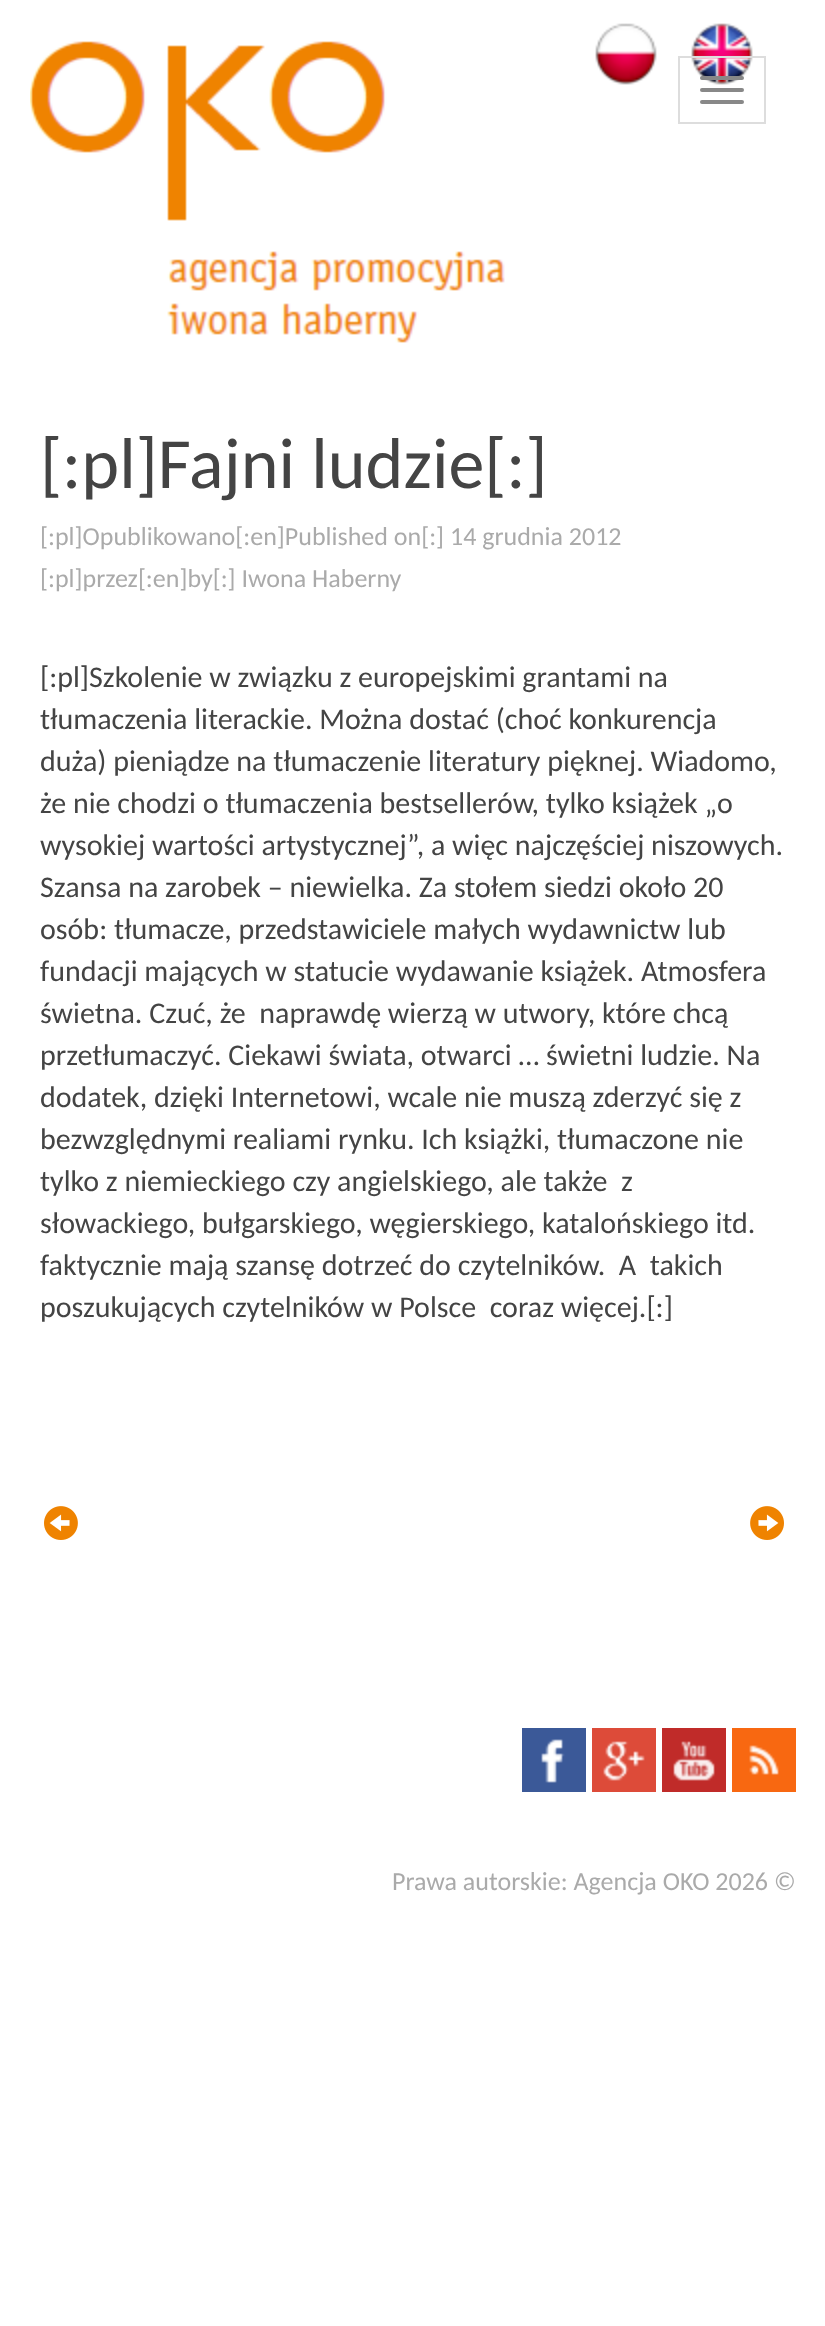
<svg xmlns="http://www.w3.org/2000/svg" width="825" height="2326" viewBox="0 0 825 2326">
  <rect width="100%" height="100%" fill="#fff"/>
  <image x="595" y="23" width="62" height="62" href="img/1.png"/>
  <image x="691" y="23" width="62" height="62" href="img/2.png"/>
  <image x="30" y="41" width="475" height="302" href="img/3.png"/>
  <path d="M679 57h86v66H679z" fill="none" stroke="#ddd" stroke-width="2"/>
  <rect x="700" y="76" width="44" height="4" rx="2" fill="#888"/>
  <rect x="700" y="88" width="44" height="4" rx="2" fill="#888"/>
  <rect x="700" y="100" width="44" height="4" rx="2" fill="#888"/>
  <image x="44" y="1506" width="34" height="34" href="img/4.png"/>
  <image x="750" y="1506" width="34" height="34" href="img/5.png"/>
  <image x="522" y="1728" width="64" height="64" href="img/6.png"/>
  <image x="592" y="1728" width="64" height="64" href="img/7.png"/>
  <image x="662" y="1728" width="64" height="64" href="img/8.png"/>
  <image x="732" y="1728" width="64" height="64" href="img/9.png"/>
  <text x="40" y="488" font-family="Carlito" font-size="72" fill="#444">[:pl]Fajni ludzie[:]</text>
  <g font-family="Carlito" font-size="26" fill="#aaa">
    <text x="40" y="545">[:pl]Opublikowano[:en]Published on[:] 14 grudnia 2012</text>
    <text x="40" y="587">[:pl]przez[:en]by[:] Iwona Haberny</text>
  </g>
  <g font-family="Carlito" font-size="30" fill="#444">
    <text x="40" y="687">[:pl]Szkolenie w związku z europejskimi grantami na</text>
    <text x="40" y="729">tłumaczenia literackie. Można dostać (choć konkurencja</text>
    <text x="40" y="771">duża) pieniądze na tłumaczenie literatury pięknej. Wiadomo,</text>
    <text x="40" y="813">że nie chodzi o tłumaczenia bestsellerów, tylko książek „o</text>
    <text x="40" y="855">wysokiej wartości artystycznej”, a więc najczęściej niszowych.</text>
    <text x="40" y="897">Szansa na zarobek – niewielka. Za stołem siedzi około 20</text>
    <text x="40" y="939">osób: tłumacze, przedstawiciele małych wydawnictw lub</text>
    <text x="40" y="981">fundacji mających w statucie wydawanie książek. Atmosfera</text>
    <text x="40" y="1023" xml:space="preserve">świetna. Czuć, że  naprawdę wierzą w utwory, które chcą</text>
    <text x="40" y="1065">przetłumaczyć. Ciekawi świata, otwarci … świetni ludzie. Na</text>
    <text x="40" y="1107">dodatek, dzięki Internetowi, wcale nie muszą zderzyć się z</text>
    <text x="40" y="1149">bezwzględnymi realiami rynku. Ich książki, tłumaczone nie</text>
    <text x="40" y="1191" xml:space="preserve">tylko z niemieckiego czy angielskiego, ale także  z</text>
    <text x="40" y="1233">słowackiego, bułgarskiego, węgierskiego, katalońskiego itd.</text>
    <text x="40" y="1275" xml:space="preserve">faktycznie mają szansę dotrzeć do czytelników.  A  takich</text>
    <text x="40" y="1317" xml:space="preserve">poszukujących czytelników w Polsce  coraz więcej.[:]</text>
  </g>
  <text x="392" y="1890" font-family="Carlito" font-size="26" fill="#aaa">Prawa autorskie: Agencja OKO 2026 ©</text>
</svg>
